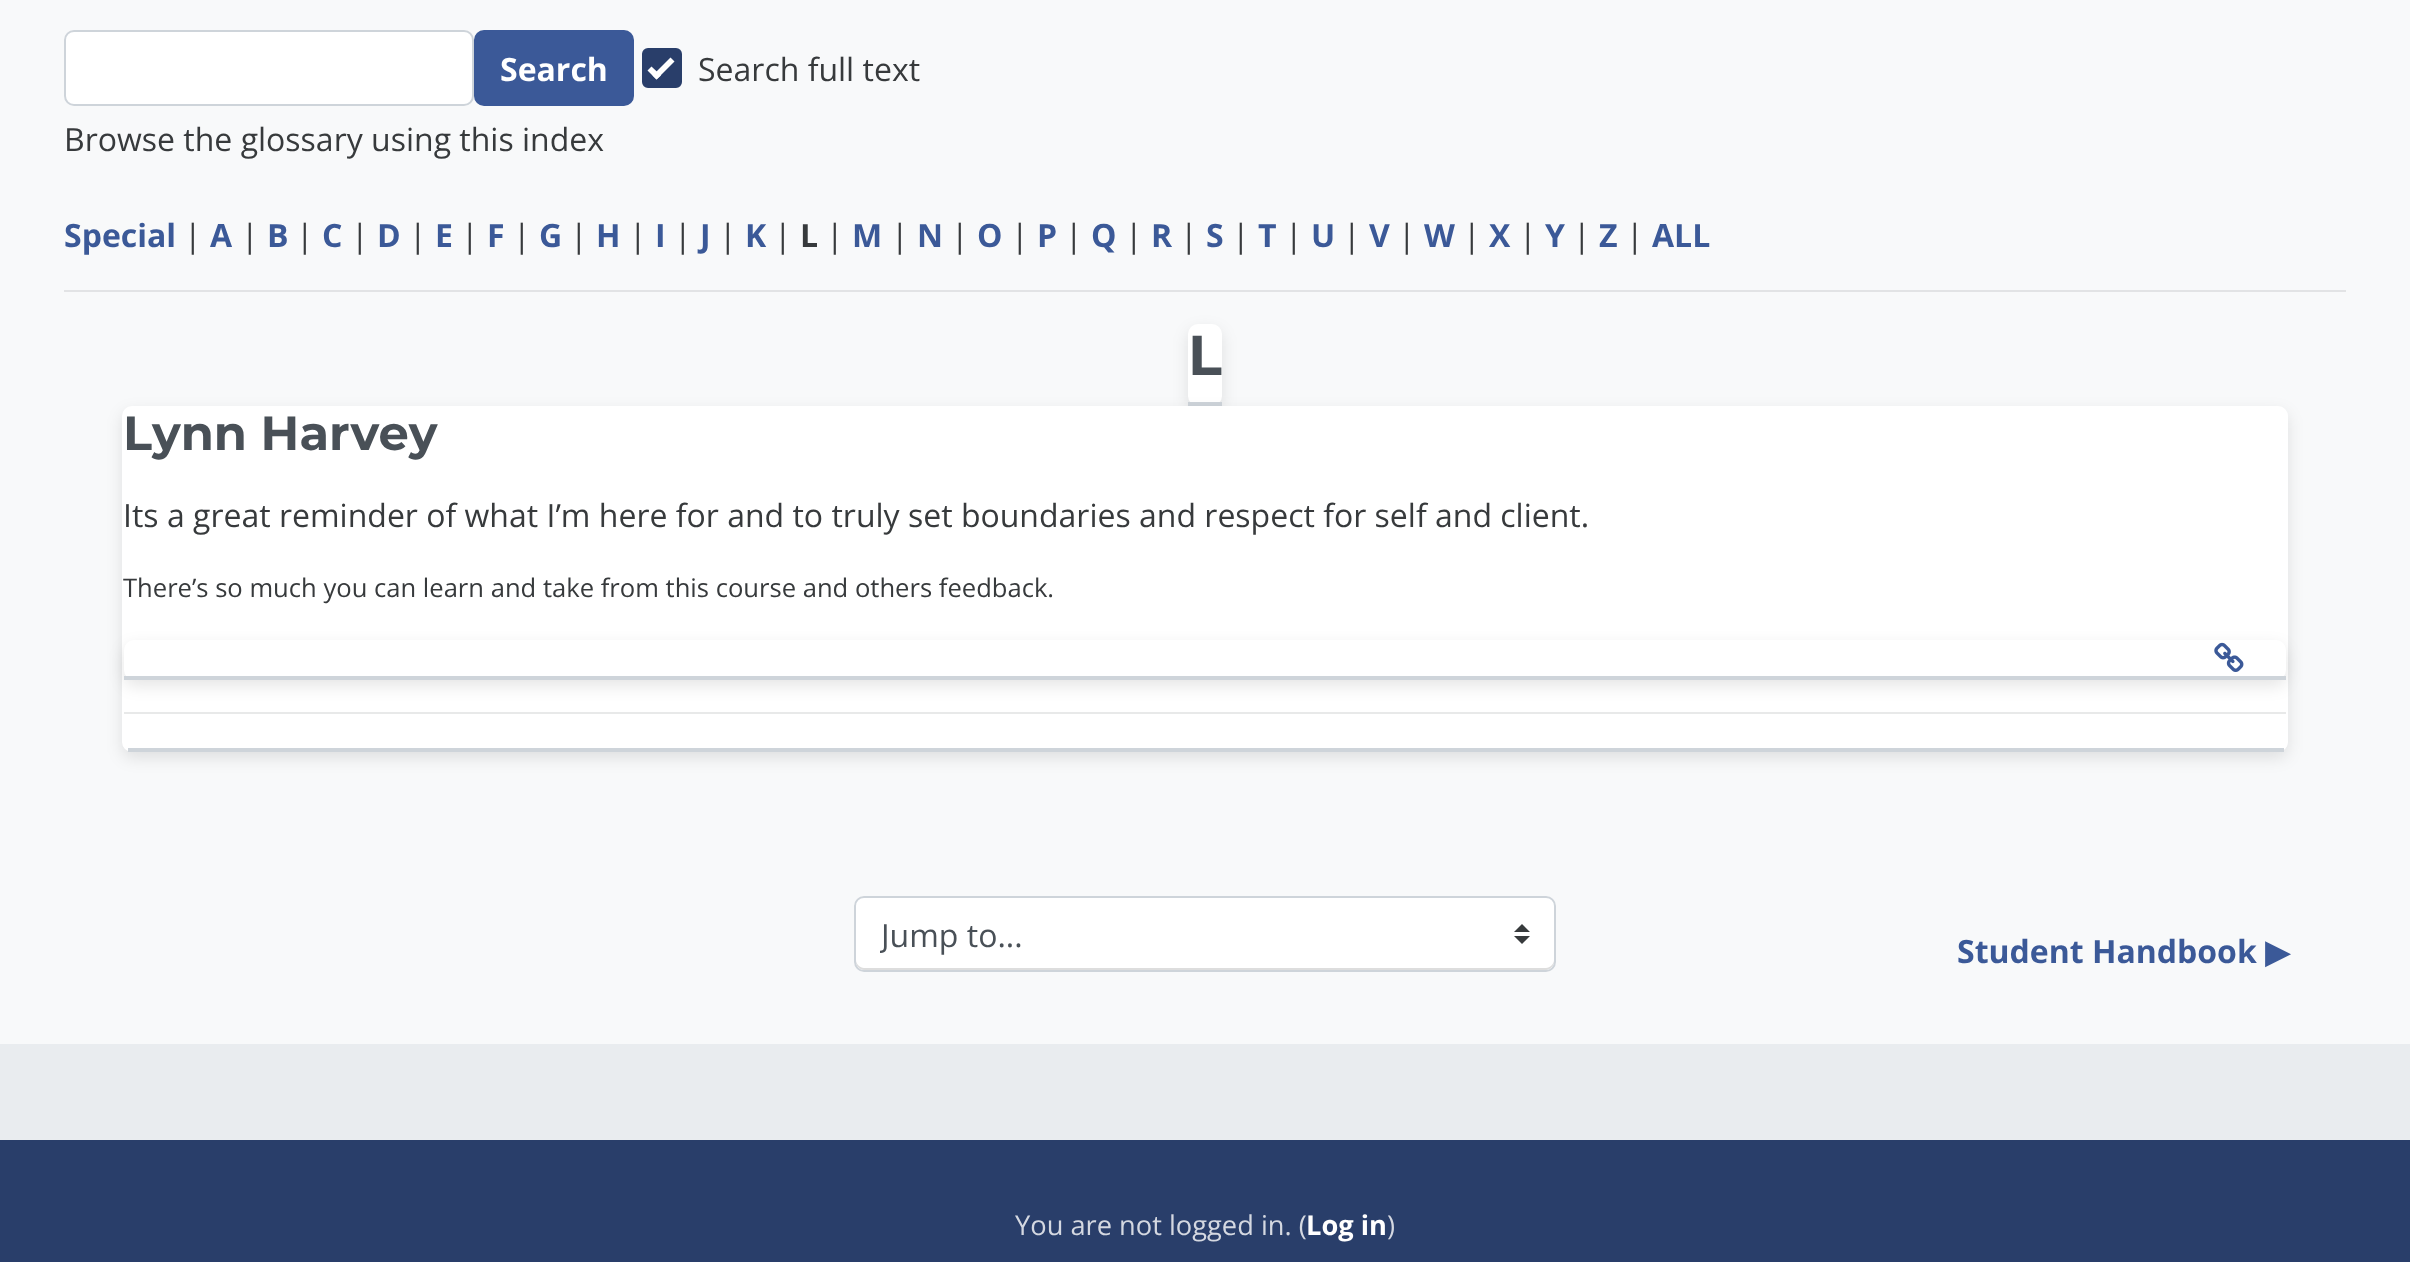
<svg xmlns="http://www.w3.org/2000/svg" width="2410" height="1262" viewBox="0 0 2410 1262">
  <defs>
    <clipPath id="clip1"><path d="M880 910h618v48H880z"/></clipPath>
  </defs>
  <rect width="100%" height="100%" fill="#f8f9fa"/>
  <rect x="65" y="31" width="408" height="74" rx="9" fill="#fff" stroke="#ced4da" stroke-width="2"/>
  <rect x="475" y="31" width="158" height="74" rx="9" fill="#3b5998" stroke="#3b5998" stroke-width="2"/>
  <rect x="644" y="50" width="36" height="36" rx="4" fill="#293e6a" stroke="#293e6a" stroke-width="4"/>
  <path d="M670.5 57.5L674.5 61.5L656.5 79.5L652.5 75.5Z" fill="#fff"/>
  <path d="M651.5 66.5L661 75.5L656.5 79.5L647.5 70.5Z" fill="#fff"/>
  <path d="M64 290h2282v2H64z" fill="#e2e3e5"/>
  <rect x="1188" y="330" width="34" height="82" rx="10" fill="#0000001a" filter="blur(8px)"/>
  <rect x="1188" y="324" width="34" height="82" rx="10" fill="#fff"/>
  <path d="M1188 402h34v4H1188z" fill="#ced4da"/>
  <rect x="122" y="412" width="2166" height="346" rx="10" fill="#0000001a" filter="blur(8px)"/>
  <rect x="122" y="406" width="2166" height="346" rx="10" fill="#fff"/>
  <path d="M128 748h2156v4H128z" fill="#ced4da"/>
  <rect x="124" y="646" width="2162" height="40" rx="10" fill="#0000001a" filter="blur(8px)"/>
  <rect x="124" y="640" width="2162" height="40" rx="10" fill="#fff"/>
  <path d="M124 676h2162v4H124z" fill="#ced4da"/>
  <image x="2214" y="642" width="30" height="30" href="img/1.png"/>
  <path d="M124 712h2162v2H124z" fill="#e8e9e9"/>
  <rect x="854" y="896" width="702" height="76" rx="10" fill="#fff"/>
  <path d="M1522 924L1514 932H1530ZM1522 944L1514 936H1530Z" fill="#373a3c"/>
  <path d="M856 960V962C856 966 860 970 864 970H1546C1550 970 1554 966 1554 962V960C1554 964 1550 968 1546 968H864C860 968 856 964 856 960Z" fill="#ddd"/>
  <rect x="855" y="897" width="700" height="74" rx="9" fill="none" stroke="#ced4da" stroke-width="2"/>
  <path d="M0 1044h2410v96H0z" fill="#e9ecef"/>
  <path d="M0 1140h2410v122H0z" fill="#293e6a"/>
  <text x="500" y="81" font-family="Open Sans" font-size="32" font-weight="bold" fill="#fff">Search</text>
  <g font-family="Open Sans" font-size="32" fill="#373a3c">
    <text x="698" y="81">Search full text</text>
    <text x="64" y="151">Browse the glossary using this index</text>
  </g>
  <text x="64" y="247" font-family="Open Sans" font-size="32" font-weight="bold" fill="#3b5998">Special</text>
  <text x="184" y="247" font-family="Open Sans" font-size="32" fill="#373a3c">|</text>
  <text x="210" y="247" font-family="Open Sans" font-size="32" font-weight="bold" fill="#3b5998">A</text>
  <text x="241" y="247" font-family="Open Sans" font-size="32" fill="#373a3c">|</text>
  <text x="267" y="247" font-family="Open Sans" font-size="32" font-weight="bold" fill="#3b5998">B</text>
  <text x="296" y="247" font-family="Open Sans" font-size="32" fill="#373a3c">|</text>
  <text x="322" y="247" font-family="Open Sans" font-size="32" font-weight="bold" fill="#3b5998">C</text>
  <text x="351" y="247" font-family="Open Sans" font-size="32" fill="#373a3c">|</text>
  <text x="377" y="247" font-family="Open Sans" font-size="32" font-weight="bold" fill="#3b5998">D</text>
  <text x="409" y="247" font-family="Open Sans" font-size="32" fill="#373a3c">|</text>
  <text x="435" y="247" font-family="Open Sans" font-size="32" font-weight="bold" fill="#3b5998">E</text>
  <text x="461" y="247" font-family="Open Sans" font-size="32" fill="#373a3c">|</text>
  <text x="487" y="247" font-family="Open Sans" font-size="32" font-weight="bold" fill="#3b5998">F</text>
  <text x="513" y="247" font-family="Open Sans" font-size="32" fill="#373a3c">|</text>
  <text x="539" y="247" font-family="Open Sans" font-size="32" font-weight="bold" fill="#3b5998">G</text>
  <text x="570" y="247" font-family="Open Sans" font-size="32" fill="#373a3c">|</text>
  <text x="596" y="247" font-family="Open Sans" font-size="32" font-weight="bold" fill="#3b5998">H</text>
  <text x="629" y="247" font-family="Open Sans" font-size="32" fill="#373a3c">|</text>
  <text x="655" y="247" font-family="Open Sans" font-size="32" font-weight="bold" fill="#3b5998">I</text>
  <text x="674" y="247" font-family="Open Sans" font-size="32" fill="#373a3c">|</text>
  <text x="700" y="247" font-family="Open Sans" font-size="32" font-weight="bold" fill="#3b5998">J</text>
  <text x="719" y="247" font-family="Open Sans" font-size="32" fill="#373a3c">|</text>
  <text x="745" y="247" font-family="Open Sans" font-size="32" font-weight="bold" fill="#3b5998">K</text>
  <text x="774" y="247" font-family="Open Sans" font-size="32" fill="#373a3c">|</text>
  <text x="800" y="247" font-family="Open Sans" font-size="32" font-weight="bold" fill="#373a3c">L</text>
  <text x="826" y="247" font-family="Open Sans" font-size="32" fill="#373a3c">|</text>
  <text x="852" y="247" font-family="Open Sans" font-size="32" font-weight="bold" fill="#3b5998">M</text>
  <text x="891" y="247" font-family="Open Sans" font-size="32" fill="#373a3c">|</text>
  <text x="917" y="247" font-family="Open Sans" font-size="32" font-weight="bold" fill="#3b5998">N</text>
  <text x="951" y="247" font-family="Open Sans" font-size="32" fill="#373a3c">|</text>
  <text x="977" y="247" font-family="Open Sans" font-size="32" font-weight="bold" fill="#3b5998">O</text>
  <text x="1011" y="247" font-family="Open Sans" font-size="32" fill="#373a3c">|</text>
  <text x="1037" y="247" font-family="Open Sans" font-size="32" font-weight="bold" fill="#3b5998">P</text>
  <text x="1065" y="247" font-family="Open Sans" font-size="32" fill="#373a3c">|</text>
  <text x="1091" y="247" font-family="Open Sans" font-size="32" font-weight="bold" fill="#3b5998">Q</text>
  <text x="1125" y="247" font-family="Open Sans" font-size="32" fill="#373a3c">|</text>
  <text x="1151" y="247" font-family="Open Sans" font-size="32" font-weight="bold" fill="#3b5998">R</text>
  <text x="1180" y="247" font-family="Open Sans" font-size="32" fill="#373a3c">|</text>
  <text x="1206" y="247" font-family="Open Sans" font-size="32" font-weight="bold" fill="#3b5998">S</text>
  <text x="1232" y="247" font-family="Open Sans" font-size="32" fill="#373a3c">|</text>
  <text x="1258" y="247" font-family="Open Sans" font-size="32" font-weight="bold" fill="#3b5998">T</text>
  <text x="1285" y="247" font-family="Open Sans" font-size="32" fill="#373a3c">|</text>
  <text x="1311" y="247" font-family="Open Sans" font-size="32" font-weight="bold" fill="#3b5998">U</text>
  <text x="1343" y="247" font-family="Open Sans" font-size="32" fill="#373a3c">|</text>
  <text x="1369" y="247" font-family="Open Sans" font-size="32" font-weight="bold" fill="#3b5998">V</text>
  <text x="1398" y="247" font-family="Open Sans" font-size="32" fill="#373a3c">|</text>
  <text x="1424" y="247" font-family="Open Sans" font-size="32" font-weight="bold" fill="#3b5998">W</text>
  <text x="1463" y="247" font-family="Open Sans" font-size="32" fill="#373a3c">|</text>
  <text x="1489" y="247" font-family="Open Sans" font-size="32" font-weight="bold" fill="#3b5998">X</text>
  <text x="1519" y="247" font-family="Open Sans" font-size="32" fill="#373a3c">|</text>
  <text x="1545" y="247" font-family="Open Sans" font-size="32" font-weight="bold" fill="#3b5998">Y</text>
  <text x="1573" y="247" font-family="Open Sans" font-size="32" fill="#373a3c">|</text>
  <text x="1599" y="247" font-family="Open Sans" font-size="32" font-weight="bold" fill="#3b5998">Z</text>
  <text x="1626" y="247" font-family="Open Sans" font-size="32" fill="#373a3c">|</text>
  <text x="1652" y="247" font-family="Open Sans" font-size="32" font-weight="bold" fill="#3b5998">ALL</text>
  <text x="1188" y="375" font-family="Montserrat" font-size="56" font-weight="bold" fill="#495057">L</text>
  <text x="123" y="450" font-family="Montserrat" font-size="48" font-weight="bold" fill="#495057">Lynn Harvey</text>
  <text x="123" y="527" font-family="Open Sans" font-size="32" fill="#373a3c">Its a great reminder of what I’m here for and to truly set boundaries and respect for self and client.</text>
  <text x="123" y="597" font-family="Open Sans" font-size="25.6" fill="#373a3c">There’s so much you can learn and take from this course and others feedback.</text>
  <g clip-path="url(#clip1)">
    <text x="881" y="947" font-family="Open Sans" font-size="32" fill="#495057">Jump to...</text>
  </g>
  <text x="1957" y="963" font-family="Open Sans" font-size="32" font-weight="bold" fill="#3b5998">Student Handbook</text>
  <text x="2265" y="963" font-family="DejaVu Sans" font-size="32" font-weight="bold" fill="#3b5998">▶︎</text>
  <text x="1015" y="1235" font-family="Open Sans" font-size="27.25" fill="#d4d8e1">You are not logged in. (</text>
  <text x="1306" y="1235" font-family="Open Sans" font-size="27.25" font-weight="bold" fill="#fff">Log in</text>
  <text x="1387" y="1235" font-family="Open Sans" font-size="27.25" fill="#d4d8e1">)</text>
</svg>
